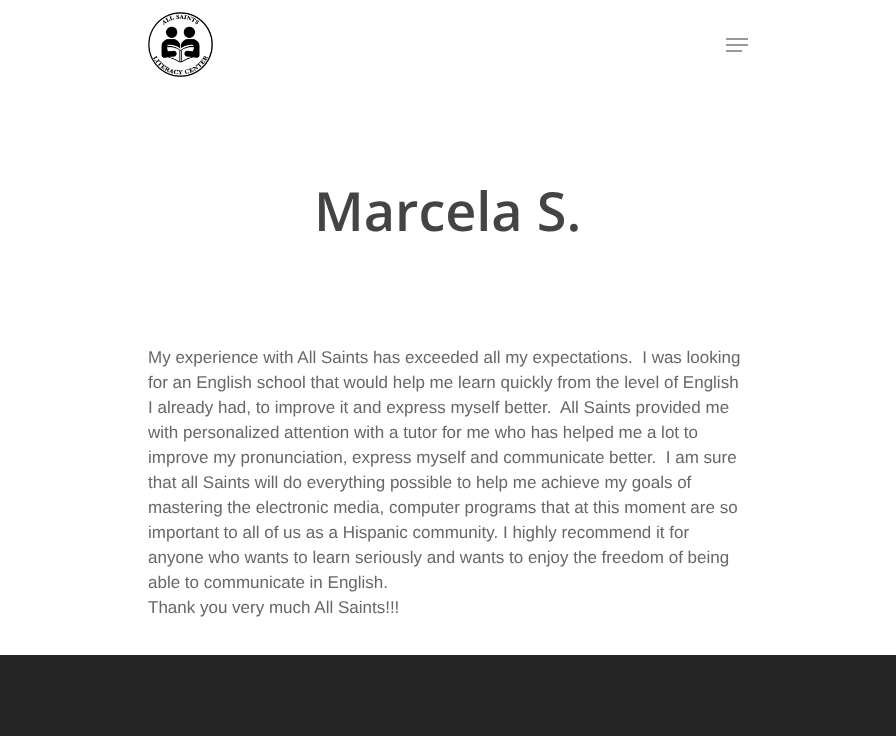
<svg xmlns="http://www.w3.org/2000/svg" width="896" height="736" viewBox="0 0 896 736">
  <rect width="100%" height="100%" fill="#fff"/>
  <image x="148" y="12" width="65" height="65" href="img/1.png"/>
  <path d="M726 38h22v2H726z" fill="#999"/>
  <path d="M726 50h16v2H726z" fill="#999"/>
  <path d="M726 44h22v2H726z" fill="#999"/>
  <path d="M0 655h896v81H0z" fill="#262626"/>
  <text x="314" y="231" font-family="Open Sans" font-size="54" font-weight="600" fill="#444">Marcela S.</text>
  <g font-family="Liberation Sans" font-size="17" fill="#676767">
    <text x="148" y="363" xml:space="preserve">My experience with All Saints has exceeded all my expectations.  I was looking</text>
    <text x="148" y="388">for an English school that would help me learn quickly from the level of English</text>
    <text x="148" y="413" xml:space="preserve">I already had, to improve it and express myself better.  All Saints provided me</text>
    <text x="148" y="438">with personalized attention with a tutor for me who has helped me a lot to</text>
    <text x="148" y="463" xml:space="preserve">improve my pronunciation, express myself and communicate better.  I am sure</text>
    <text x="148" y="488">that all Saints will do everything possible to help me achieve my goals of</text>
    <text x="148" y="513">mastering the electronic media, computer programs that at this moment are so</text>
    <text x="148" y="538">important to all of us as a Hispanic community. I highly recommend it for</text>
    <text x="148" y="563">anyone who wants to learn seriously and wants to enjoy the freedom of being</text>
    <text x="148" y="588">able to communicate in English.</text>
    <text x="148" y="613">Thank you very much All Saints!!!</text>
  </g>
</svg>
